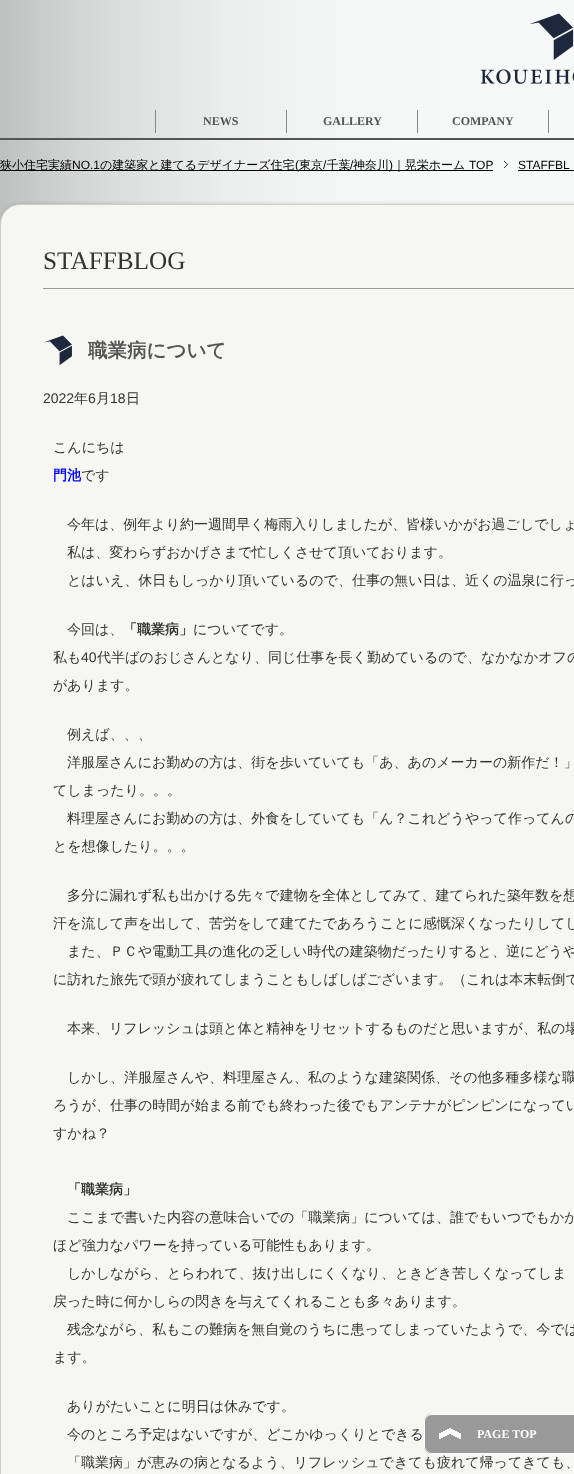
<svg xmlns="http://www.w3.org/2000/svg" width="574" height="1474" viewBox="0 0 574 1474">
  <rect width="100%" height="100%" fill="#fff"/>
  <image x="0" y="0" width="574" height="224" href="img/1.png"/>
  <image x="480" y="13" width="94" height="71" href="img/2.png"/>
  <path d="M0 138h574v2H0z" fill="#555"/>
  <path d="M286 110h1v23H286z" fill="#888"/>
  <path d="M155 110h1v23H155z" fill="#888"/>
  <path d="M417 110h1v23H417z" fill="#888"/>
  <path d="M548 110h1v23H548z" fill="#888"/>
  <path d="M0 170h493v1H0z" fill="#000"/>
  <image x="504" y="161" width="4" height="7" href="img/3.png"/>
  <path d="M518 170h56v1H518z" fill="#000"/>
  <rect x="2" y="206" width="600" height="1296" rx="20" fill="#00000080" filter="blur(2.5px)"/>
  <rect x="0.5" y="204.5" width="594" height="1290" rx="19.5" fill="#f6f7f2" stroke="#ccc"/>
  <path d="M43 288h531v1H43z" fill="#999"/>
  <image x="44" y="335" width="28" height="31" href="img/4.png"/>
  <path d="M432 1414H574V1454H432C427.5 1454 424 1450.5 424 1446V1422C424 1417.5 427.5 1414 432 1414Z" fill="#999"/>
  <image x="439" y="1428" width="22" height="11" href="img/5.png"/>
  <path d="M432 1414H574V1454H432C428 1454 424 1450 424 1446V1422C424 1418 428 1414 432 1414ZM432 1415H574V1453H432C428 1453 425 1450 425 1446V1422C425 1418 428 1415 432 1415Z" fill="#fff" fill-rule="evenodd"/>
  <g font-family="Liberation Serif" font-size="12" font-weight="bold" fill="#555">
    <text x="203" y="125">NEWS</text>
    <text x="323" y="125">GALLERY</text>
    <text x="452" y="125">COMPANY</text>
  </g>
  <text x="0" y="169" font-family="WenQuanYi Zen Hei" font-size="12" font-weight="500" fill="#000">狭小住宅実績</text>
  <text x="72" y="169" font-family="Liberation Sans" font-size="12" fill="#000">NO.1</text>
  <text x="100" y="169" font-family="WenQuanYi Zen Hei" font-size="12" font-weight="500" fill="#000">の建築家と建てるデザイナーズ住宅</text>
  <text x="295" y="169" font-family="Liberation Sans" font-size="12" fill="#000">(</text>
  <g font-family="WenQuanYi Zen Hei" font-size="12" font-weight="500" fill="#000">
    <text x="299" y="169">東京 千葉</text>
    <text x="393" y="169">｜晃栄ホーム</text>
  </g>
  <g font-family="Liberation Sans" font-size="12" fill="#000">
    <text x="323" y="169">/</text>
    <text x="350" y="169">/</text>
  </g>
  <text x="353" y="169" font-family="WenQuanYi Zen Hei" font-size="12" font-weight="500" fill="#000">神奈川</text>
  <g font-family="Liberation Sans" font-size="12" fill="#000">
    <text x="389" y="169">)</text>
    <text x="469" y="169">TOP</text>
    <text x="518" y="169">STAFFBL</text>
  </g>
  <text x="43" y="269" font-family="Liberation Serif" font-size="25.25" fill="#333">STAFFBLOG</text>
  <text x="88" y="357" font-family="WenQuanYi Zen Hei" font-size="19.5" font-weight="bold" fill="#555">職業病について</text>
  <text x="43" y="403" font-family="Liberation Sans" font-size="14" fill="#333">2022</text>
  <text x="74" y="403" font-family="WenQuanYi Zen Hei" font-size="14" font-weight="500" fill="#333">年</text>
  <text x="88" y="403" font-family="Liberation Sans" font-size="14" fill="#333">6</text>
  <text x="96" y="403" font-family="WenQuanYi Zen Hei" font-size="14" font-weight="500" fill="#333">月</text>
  <text x="110" y="403" font-family="Liberation Sans" font-size="14" fill="#333">18</text>
  <g font-family="WenQuanYi Zen Hei" font-size="14" font-weight="500" fill="#333">
    <text x="126" y="403">日</text>
    <text x="53" y="452">こんにちは</text>
  </g>
  <text x="53" y="480" font-family="WenQuanYi Zen Hei" font-size="14" font-weight="bold" fill="#00f">門池</text>
  <g font-family="WenQuanYi Zen Hei" font-size="14" font-weight="500" fill="#333">
    <text x="81" y="480">です</text>
    <text x="67" y="529">今年は、例年より約一週間早く梅雨入りしましたが、皆様いかがお過ごしでしょ</text>
    <text x="67" y="557">私は、変わらずおかげさまで忙しくさせて頂いております。</text>
    <text x="67" y="585">とはいえ、休日もしっかり頂いているので、仕事の無い日は、近くの温泉に行っ</text>
    <text x="67" y="634">今回は、</text>
  </g>
  <text x="123" y="634" font-family="WenQuanYi Zen Hei" font-size="14" font-weight="bold" fill="#333">「職業病」</text>
  <g font-family="WenQuanYi Zen Hei" font-size="14" font-weight="500" fill="#333">
    <text x="193" y="634">についてです。</text>
    <text x="53" y="662">私も</text>
  </g>
  <text x="81" y="662" font-family="Liberation Sans" font-size="14" fill="#333">40</text>
  <g font-family="WenQuanYi Zen Hei" font-size="14" font-weight="500" fill="#333">
    <text x="97" y="662">代半ばのおじさんとなり、同じ仕事を長く勤めているので、なかなかオフの</text>
    <text x="53" y="690">があります。</text>
    <text x="67" y="739">例えば、、、</text>
    <text x="67" y="767">洋服屋さんにお勤めの方は、街を歩いていても「あ、あのメーカーの新作だ！」</text>
    <text x="53" y="795">てしまったり。。。</text>
    <text x="67" y="823">料理屋さんにお勤めの方は、外食をしていても「ん？これどうやって作ってんの</text>
    <text x="53" y="851">とを想像したり。。。</text>
    <text x="67" y="900">多分に漏れず私も出かける先々で建物を全体としてみて、建てられた築年数を想</text>
    <text x="53" y="928">汗を流して声を出して、苦労をして建てたであろうことに感慨深くなったりしてし</text>
    <text x="67" y="956">また、ＰＣや電動工具の進化の乏しい時代の建築物だったりすると、逆にどうや</text>
    <text x="53" y="984">に訪れた旅先で頭が疲れてしまうこともしばしばございます。（これは本末転倒で</text>
    <text x="67" y="1033">本来、リフレッシュは頭と体と精神をリセットするものだと思いますが、私の場</text>
    <text x="67" y="1082">しかし、洋服屋さんや、料理屋さん、私のような建築関係、その他多種多様な職</text>
    <text x="53" y="1110">ろうが、仕事の時間が始まる前でも終わった後でもアンテナがピンピンになってい</text>
    <text x="53" y="1138">すかね？</text>
  </g>
  <text x="67" y="1194" font-family="WenQuanYi Zen Hei" font-size="14" font-weight="bold" fill="#333">「職業病」</text>
  <g font-family="WenQuanYi Zen Hei" font-size="14" font-weight="500" fill="#333">
    <text x="67" y="1222">ここまで書いた内容の意味合いでの「職業病」については、誰でもいつでもかか</text>
    <text x="53" y="1250">ほど強力なパワーを持っている可能性もあります。</text>
    <text x="67" y="1278">しかしながら、とらわれて、抜け出しにくくなり、ときどき苦しくなってしま</text>
    <text x="53" y="1306">戻った時に何かしらの閃きを与えてくれることも多々あります。</text>
    <text x="67" y="1334">残念ながら、私もこの難病を無自覚のうちに患ってしまっていたようで、今では</text>
    <text x="53" y="1362">ます。</text>
    <text x="67" y="1411">ありがたいことに明日は休みです。</text>
    <text x="67" y="1439">今のところ予定はないですが、どこかゆっくりとできる</text>
    <text x="67" y="1467">「職業病」が恵みの病となるよう、リフレッシュできても疲れて帰ってきても、</text>
  </g>
  <text x="477" y="1438" font-family="Liberation Serif" font-size="12" font-weight="bold" fill="#fff">PAGE TOP</text>
</svg>
